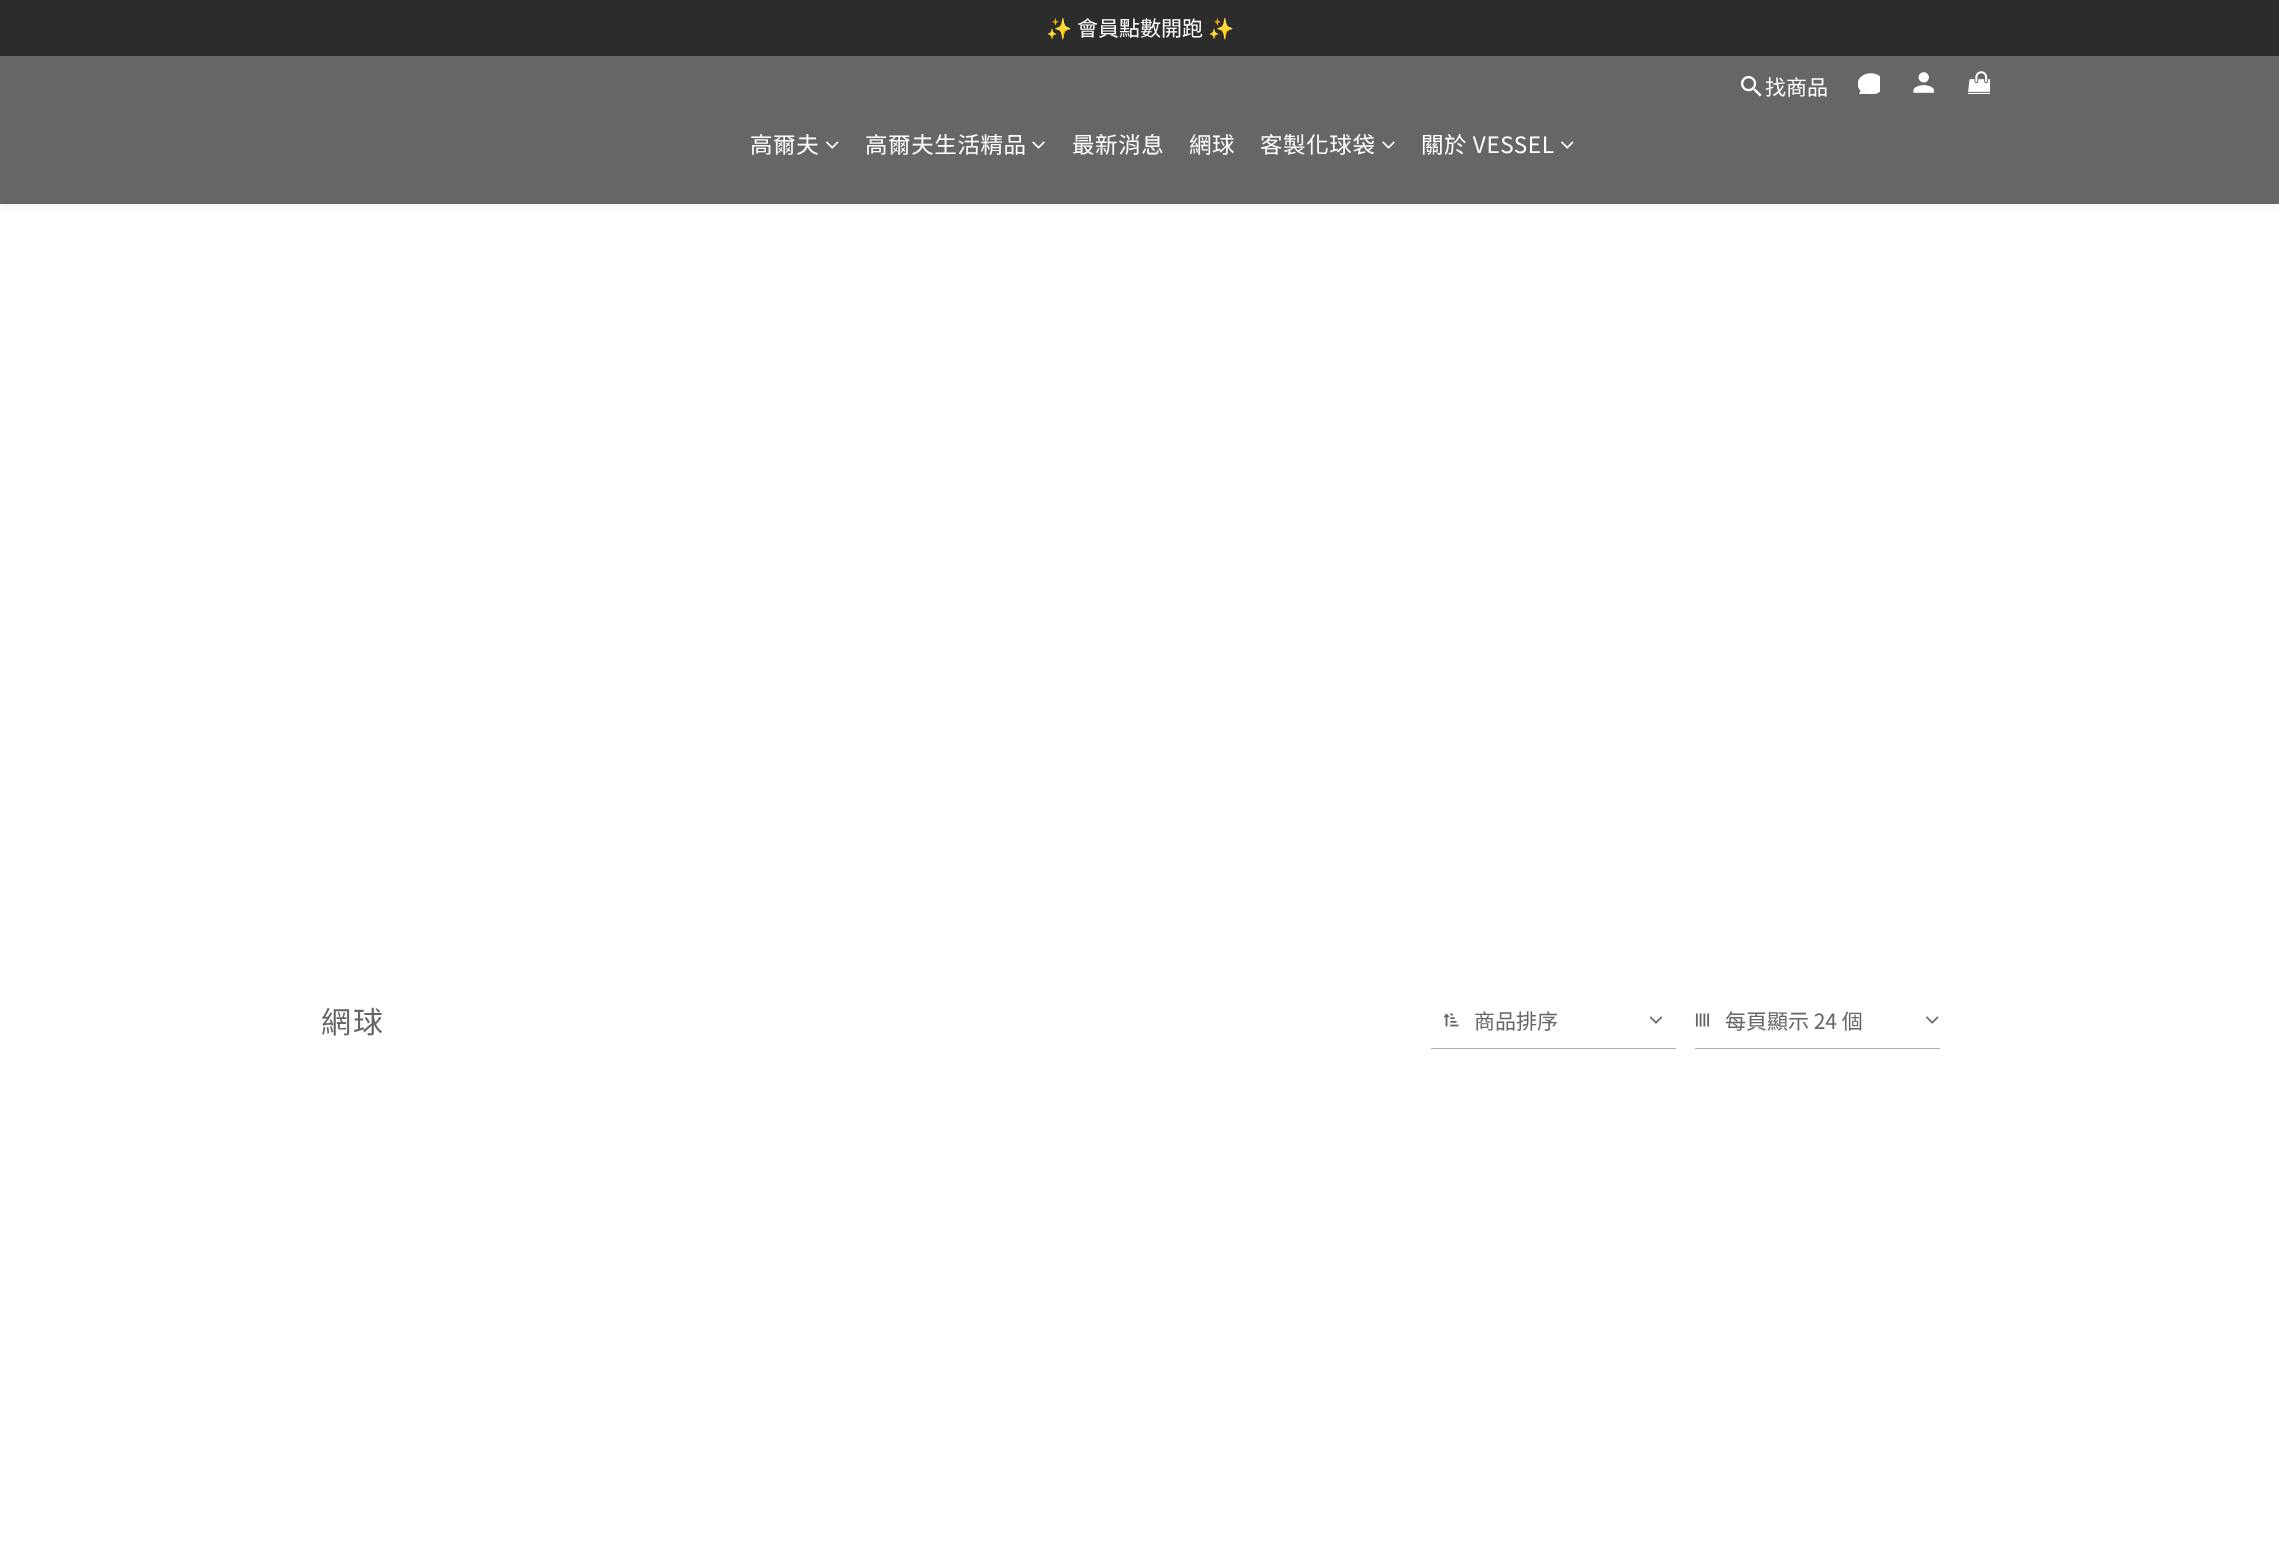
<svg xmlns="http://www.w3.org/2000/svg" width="2279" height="1554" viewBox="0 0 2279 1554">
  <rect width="100%" height="100%" fill="#fff"/>
  <path d="M0 0h2279v56H0z" fill="#2c2c2c"/>
  <path d="M0 59h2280v147H0z" fill="#0000000f" filter="blur(4px)"/>
  <path d="M0 56h2279v148H0z" fill="#666"/>
  <image x="1740" y="75" width="22" height="22" href="img/1.png"/>
  <image x="1858" y="73" width="22" height="21" href="img/2.png"/>
  <image x="1913" y="72" width="22" height="21" href="img/3.png"/>
  <image x="1968" y="71" width="22" height="23" href="img/4.png"/>
  <image x="826" y="141" width="13" height="8" href="img/5.png"/>
  <image x="1032" y="141" width="13" height="8" href="img/6.png"/>
  <image x="1382" y="141" width="13" height="8" href="img/6.png"/>
  <image x="1561" y="141" width="13" height="8" href="img/5.png"/>
  <path d="M1431 1048h245v1H1431z" fill="#adadad"/>
  <image x="1444" y="1013" width="15" height="14" href="img/7.png"/>
  <image x="1649" y="1016" width="14" height="8" href="img/8.png"/>
  <path d="M1695 1048h245v1H1695z" fill="#adadad"/>
  <image x="1695" y="1013" width="15" height="14" href="img/9.png"/>
  <image x="1926" y="1016" width="13" height="8" href="img/10.png"/>
  <text x="1046" y="36" font-family="Noto Color Emoji" font-size="21" fill="#fff">✨</text>
  <text x="1077" y="36" font-family="Noto Sans TC" font-size="21" fill="#fff">會員點數開跑</text>
  <text x="1208" y="36" font-family="Noto Color Emoji" font-size="21" fill="#fff">✨</text>
  <text x="1765" y="95" font-family="Noto Sans TC" font-size="21" fill="#fff">找商品</text>
  <g font-family="Noto Sans TC" font-size="22.5" letter-spacing="0.6" fill="#fff">
    <text x="750" y="153">高爾夫</text>
    <text x="865" y="153">高爾夫生活精品</text>
    <text x="1072" y="153">最新消息</text>
    <text x="1189" y="153">網球</text>
    <text x="1260" y="153">客製化球袋</text>
    <text x="1421" y="153">關於 VESSEL</text>
  </g>
  <text x="321" y="1033" font-family="Noto Sans TC" font-size="30" letter-spacing="2" fill="#666">網球</text>
  <g font-family="Noto Sans TC" font-size="21" fill="#666">
    <text x="1474" y="1029">商品排序</text>
    <text x="1725" y="1029">每頁顯示 24 個</text>
  </g>
</svg>
